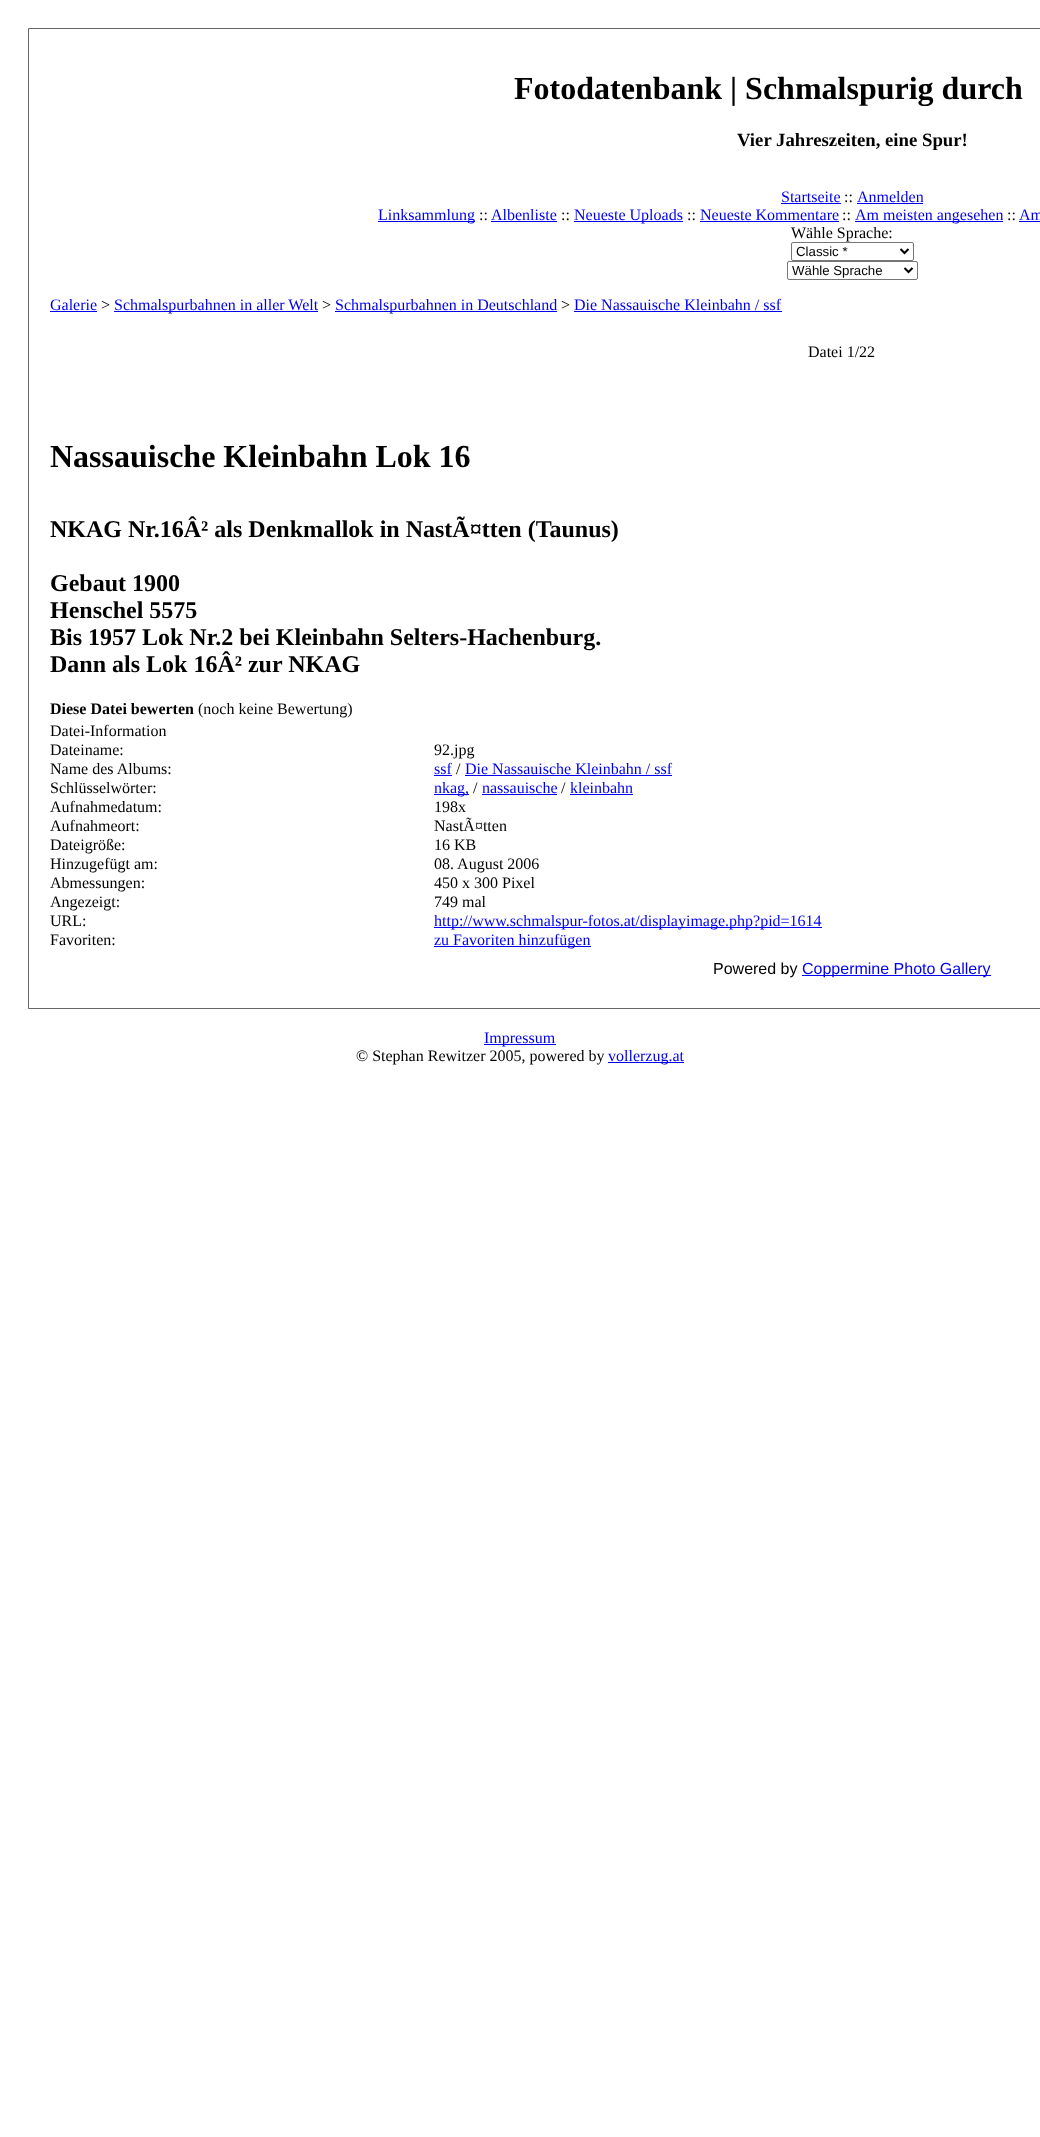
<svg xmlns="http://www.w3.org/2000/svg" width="1040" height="2137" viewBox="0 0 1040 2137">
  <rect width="100%" height="100%" fill="#fff"/>
  <path d="M28.5 28.5h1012v980H28.5z" fill="none" stroke="#666"/>
  <path d="M781 203h60v1H781z" fill="#00e"/>
  <path d="M857 203h66v1H857z" fill="#00e"/>
  <path d="M378 221h97v1H378z" fill="#00e"/>
  <path d="M491 221h66v1H491z" fill="#00e"/>
  <path d="M574 221h109v1H574z" fill="#00e"/>
  <path d="M700 221h139v1H700z" fill="#00e"/>
  <path d="M855 221h148v1H855z" fill="#00e"/>
  <path d="M1019 221h21v1H1019z" fill="#00e"/>
  <rect x="791.5" y="242.5" width="122" height="18" rx="1.5" fill="none" stroke="#767676"/>
  <path d="M900.5 249L904.5 253L908.5 249" fill="none" stroke="#000" stroke-width="2"/>
  <rect x="787.5" y="261.5" width="130" height="18" rx="1.5" fill="none" stroke="#767676"/>
  <path d="M904.5 268L908.5 272L912.5 268" fill="none" stroke="#000" stroke-width="2"/>
  <path d="M50 311h47v1H50z" fill="#00e"/>
  <path d="M114 311h204v1H114z" fill="#00e"/>
  <path d="M335 311h222v1H335z" fill="#00e"/>
  <path d="M574 311h208v1H574z" fill="#00e"/>
  <path d="M434 775h18v1H434z" fill="#00e"/>
  <path d="M465 775h207v1H465z" fill="#00e"/>
  <path d="M434 794h35v1H434z" fill="#00e"/>
  <path d="M482 794h75v1H482z" fill="#00e"/>
  <path d="M570 794h63v1H570z" fill="#00e"/>
  <path d="M434 927h388v1H434z" fill="#00e"/>
  <path d="M434 946h157v1H434z" fill="#00e"/>
  <path d="M802 975h189v1H802z" fill="#00e"/>
  <path d="M484 1044h72v1H484z" fill="#00e"/>
  <path d="M608 1062h76v1H608z" fill="#00e"/>
  <text x="514" y="99" font-family="Liberation Serif" font-size="32" font-weight="bold" fill="#000">Fotodatenbank | Schmalspurig durch</text>
  <text x="737" y="146" font-family="Liberation Serif" font-size="18.75" font-weight="bold" fill="#000">Vier Jahreszeiten, eine Spur!</text>
  <text x="781" y="202" font-family="Liberation Serif" font-size="16" fill="#00e">Startseite</text>
  <text x="844" y="202" font-family="Liberation Serif" font-size="16" fill="#000">::</text>
  <g font-family="Liberation Serif" font-size="16" fill="#00e">
    <text x="857" y="202">Anmelden</text>
    <text x="378" y="220">Linksammlung</text>
  </g>
  <text x="479" y="220" font-family="Liberation Serif" font-size="16" fill="#000">::</text>
  <text x="491" y="220" font-family="Liberation Serif" font-size="16" fill="#00e">Albenliste</text>
  <text x="561" y="220" font-family="Liberation Serif" font-size="16" fill="#000">::</text>
  <text x="574" y="220" font-family="Liberation Serif" font-size="16" fill="#00e">Neueste Uploads</text>
  <text x="687" y="220" font-family="Liberation Serif" font-size="16" fill="#000">::</text>
  <text x="700" y="220" font-family="Liberation Serif" font-size="16" fill="#00e">Neueste Kommentare</text>
  <text x="842" y="220" font-family="Liberation Serif" font-size="16" fill="#000">::</text>
  <text x="855" y="220" font-family="Liberation Serif" font-size="16" fill="#00e">Am meisten angesehen</text>
  <text x="1007" y="220" font-family="Liberation Serif" font-size="16" fill="#000">::</text>
  <text x="1019" y="220" font-family="Liberation Serif" font-size="16" fill="#00e">Am</text>
  <text x="791" y="238" font-family="Liberation Serif" font-size="16" fill="#000">Wähle Sprache:</text>
  <g font-family="Liberation Sans" font-size="13.25" fill="#000">
    <text x="796" y="256">Classic *</text>
    <text x="792" y="275">Wähle Sprache</text>
  </g>
  <text x="50" y="310" font-family="Liberation Serif" font-size="16" fill="#00e">Galerie</text>
  <text x="101" y="310" font-family="Liberation Serif" font-size="16" fill="#000">&gt;</text>
  <text x="114" y="310" font-family="Liberation Serif" font-size="16" fill="#00e">Schmalspurbahnen in aller Welt</text>
  <text x="322" y="310" font-family="Liberation Serif" font-size="16" fill="#000">&gt;</text>
  <text x="335" y="310" font-family="Liberation Serif" font-size="16" fill="#00e">Schmalspurbahnen in Deutschland</text>
  <text x="561" y="310" font-family="Liberation Serif" font-size="16" fill="#000">&gt;</text>
  <text x="574" y="310" font-family="Liberation Serif" font-size="16" fill="#00e">Die Nassauische Kleinbahn / ssf</text>
  <text x="808" y="357" font-family="Liberation Serif" font-size="16" fill="#000">Datei 1/22</text>
  <text x="50" y="467" font-family="Liberation Serif" font-size="32" font-weight="bold" fill="#000">Nassauische Kleinbahn Lok 16</text>
  <g font-family="Liberation Serif" font-size="24" font-weight="bold" fill="#000">
    <text x="50" y="537">NKAG Nr.16Â² als Denkmallok in NastÃ¤tten (Taunus)</text>
    <text x="50" y="591">Gebaut 1900</text>
    <text x="50" y="618">Henschel 5575</text>
    <text x="50" y="645">Bis 1957 Lok Nr.2 bei Kleinbahn Selters-Hachenburg.</text>
    <text x="50" y="672">Dann als Lok 16Â² zur NKAG</text>
  </g>
  <text x="50" y="714" font-family="Liberation Serif" font-size="16" font-weight="bold" fill="#000">Diese Datei bewerten</text>
  <g font-family="Liberation Serif" font-size="16" fill="#000">
    <text x="198" y="714">(noch keine Bewertung)</text>
    <text x="50" y="736">Datei-Information</text>
    <text x="50" y="755">Dateiname:</text>
    <text x="434" y="755">92.jpg</text>
    <text x="50" y="774">Name des Albums:</text>
  </g>
  <text x="434" y="774" font-family="Liberation Serif" font-size="16" fill="#00e">ssf</text>
  <text x="456" y="774" font-family="Liberation Serif" font-size="16" fill="#000">/</text>
  <text x="465" y="774" font-family="Liberation Serif" font-size="16" fill="#00e">Die Nassauische Kleinbahn / ssf</text>
  <text x="50" y="793" font-family="Liberation Serif" font-size="16" fill="#000">Schlüsselwörter:</text>
  <text x="434" y="793" font-family="Liberation Serif" font-size="16" fill="#00e">nkag,</text>
  <text x="473" y="793" font-family="Liberation Serif" font-size="16" fill="#000">/</text>
  <text x="482" y="793" font-family="Liberation Serif" font-size="16" fill="#00e">nassauische</text>
  <text x="561" y="793" font-family="Liberation Serif" font-size="16" fill="#000">/</text>
  <text x="570" y="793" font-family="Liberation Serif" font-size="16" fill="#00e">kleinbahn</text>
  <g font-family="Liberation Serif" font-size="16" fill="#000">
    <text x="50" y="812">Aufnahmedatum:</text>
    <text x="434" y="812">198x</text>
    <text x="50" y="831">Aufnahmeort:</text>
    <text x="434" y="831">NastÃ¤tten</text>
    <text x="50" y="850">Dateigröße:</text>
    <text x="434" y="850">16 KB</text>
    <text x="50" y="869">Hinzugefügt am:</text>
    <text x="434" y="869">08. August 2006</text>
    <text x="50" y="888">Abmessungen:</text>
    <text x="434" y="888">450 x 300 Pixel</text>
    <text x="50" y="907">Angezeigt:</text>
    <text x="434" y="907">749 mal</text>
    <text x="50" y="926">URL:</text>
  </g>
  <text x="434" y="926" font-family="Liberation Serif" font-size="16" fill="#00e">http://www.schmalspur-fotos.at/displayimage.php?pid=1614</text>
  <text x="50" y="945" font-family="Liberation Serif" font-size="16" fill="#000">Favoriten:</text>
  <text x="434" y="945" font-family="Liberation Serif" font-size="16" fill="#00e">zu Favoriten hinzufügen</text>
  <text x="713" y="974" font-family="Liberation Sans" font-size="16" fill="#000">Powered by</text>
  <text x="802" y="974" font-family="Liberation Sans" font-size="16" fill="#00e">Coppermine Photo Gallery</text>
  <text x="484" y="1043" font-family="Liberation Serif" font-size="16" fill="#00e">Impressum</text>
  <text x="356" y="1061" font-family="Liberation Serif" font-size="16" fill="#000">© Stephan Rewitzer 2005, powered by</text>
  <text x="608" y="1061" font-family="Liberation Serif" font-size="16" fill="#00e">vollerzug.at</text>
</svg>
